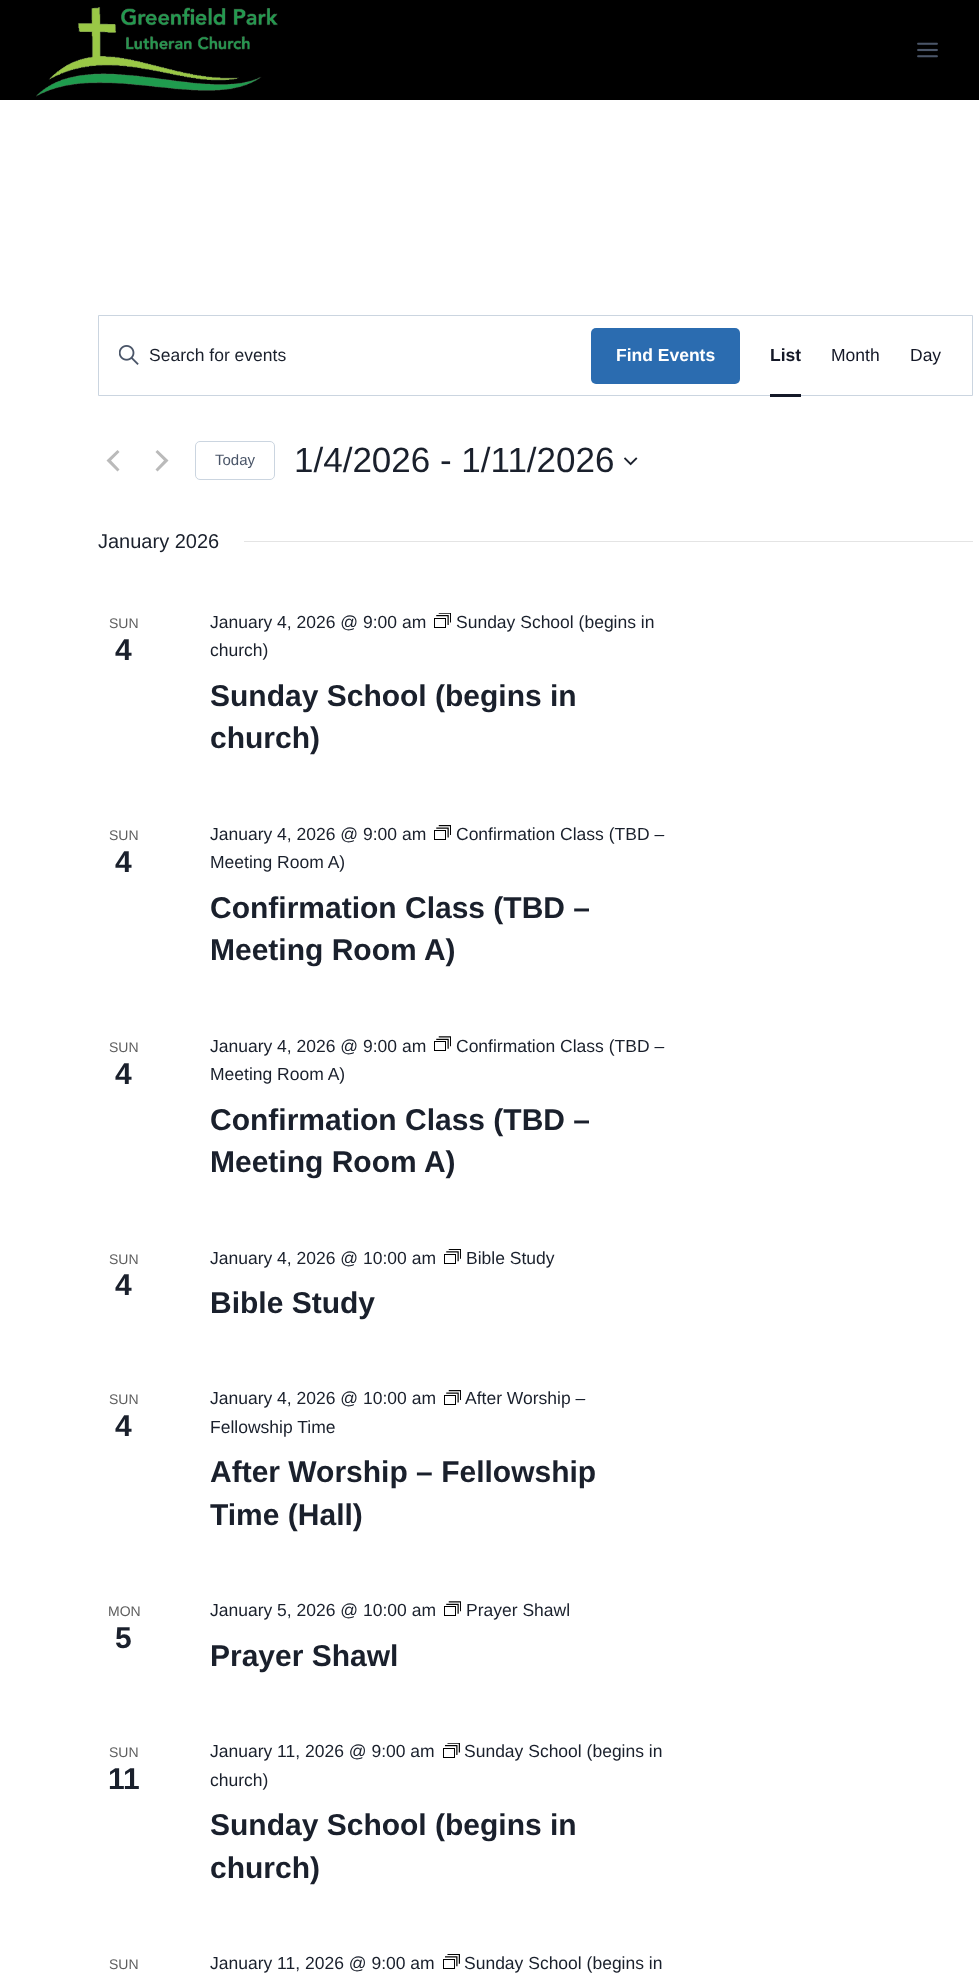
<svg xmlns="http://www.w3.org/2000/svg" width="979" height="1979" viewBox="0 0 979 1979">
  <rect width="100%" height="100%" fill="#fff"/>
  <path d="M0 0h979v100H0z" fill="#000"/>
  <image x="36" y="7" width="242" height="90" href="img/1.png"/>
  <image x="917" y="42" width="21" height="16" href="img/2.png"/>
  <path d="M98.5 315.5h874v80H98.5z" fill="none" stroke="#cbd5e0"/>
  <image x="119" y="345" width="20" height="20" href="img/3.png"/>
  <rect x="591" y="328" width="149" height="56" rx="5" fill="#2b6cb0"/>
  <path d="M770 394h31v3H770z" fill="#141827"/>
  <path d="M119.5 469.5L117.5 471.5L106.5 460.5L117.5 450L119.5 452L111 460.5ZM155.5 452L157.5 450L168.5 460.5L157.5 471.5L155.5 469.5L164 460.5Z" fill="#bababa"/>
  <rect x="195.5" y="441.5" width="79" height="38" rx="4.5" fill="none" stroke="#cbd5e0"/>
  <image x="624" y="457" width="14" height="9" href="img/4.png"/>
  <path d="M244 541h729v1H244z" fill="#e4e4e4"/>
  <image x="434" y="613" width="17" height="15" href="img/5.png"/>
  <image x="434" y="825" width="17" height="15" href="img/6.png"/>
  <image x="434" y="1036" width="17" height="15" href="img/7.png"/>
  <image x="444" y="1249" width="17" height="15" href="img/8.png"/>
  <image x="444" y="1390" width="17" height="15" href="img/6.png"/>
  <image x="444" y="1601" width="17" height="15" href="img/7.png"/>
  <image x="443" y="1743" width="17" height="15" href="img/9.png"/>
  <image x="443" y="1954" width="17" height="15" href="img/10.png"/>
  <text x="149" y="361" font-family="Liberation Sans" font-size="17.5" fill="#1a202c">Search for events</text>
  <text x="616" y="361" font-family="Liberation Sans" font-size="17.5" font-weight="bold" fill="#fff">Find Events</text>
  <text x="770" y="361" font-family="Liberation Sans" font-size="17.5" font-weight="bold" fill="#141827">List</text>
  <g font-family="Liberation Sans" font-size="17.5" fill="#141827">
    <text x="831" y="361">Month</text>
    <text x="910" y="361">Day</text>
  </g>
  <text x="215" y="465" font-family="Liberation Sans" font-size="15" fill="#4a5568">Today</text>
  <text x="294" y="472" font-family="Liberation Sans" font-size="35" fill="#1a202c">1/4/2026 - 1/11/2026</text>
  <text x="98" y="548" font-family="Liberation Sans" font-size="20" fill="#1a202c">January 2026</text>
  <text x="109" y="628" font-family="Liberation Sans" font-size="14" fill="#5d5d5d">SUN</text>
  <text x="115" y="660" font-family="Liberation Sans" font-size="30" font-weight="bold" fill="#1a202c">4</text>
  <g font-family="Liberation Sans" font-size="17.5" fill="#1a202c">
    <text x="210" y="628">January 4, 2026 @ 9:00 am</text>
    <text x="456" y="628">Sunday School (begins in</text>
    <text x="210" y="656">church)</text>
  </g>
  <g font-family="Liberation Sans" font-size="30" font-weight="bold" fill="#1a202c">
    <text x="210" y="706">Sunday School (begins in</text>
    <text x="210" y="748">church)</text>
  </g>
  <text x="109" y="840" font-family="Liberation Sans" font-size="14" fill="#5d5d5d">SUN</text>
  <text x="115" y="872" font-family="Liberation Sans" font-size="30" font-weight="bold" fill="#1a202c">4</text>
  <g font-family="Liberation Sans" font-size="17.5" fill="#1a202c">
    <text x="210" y="840">January 4, 2026 @ 9:00 am</text>
    <text x="456" y="840">Confirmation Class (TBD –</text>
    <text x="210" y="868">Meeting Room A)</text>
  </g>
  <g font-family="Liberation Sans" font-size="30" font-weight="bold" fill="#1a202c">
    <text x="210" y="918">Confirmation Class (TBD –</text>
    <text x="210" y="960">Meeting Room A)</text>
  </g>
  <text x="109" y="1052" font-family="Liberation Sans" font-size="14" fill="#5d5d5d">SUN</text>
  <text x="115" y="1084" font-family="Liberation Sans" font-size="30" font-weight="bold" fill="#1a202c">4</text>
  <g font-family="Liberation Sans" font-size="17.5" fill="#1a202c">
    <text x="210" y="1052">January 4, 2026 @ 9:00 am</text>
    <text x="456" y="1052">Confirmation Class (TBD –</text>
    <text x="210" y="1080">Meeting Room A)</text>
  </g>
  <g font-family="Liberation Sans" font-size="30" font-weight="bold" fill="#1a202c">
    <text x="210" y="1130">Confirmation Class (TBD –</text>
    <text x="210" y="1172">Meeting Room A)</text>
  </g>
  <text x="109" y="1264" font-family="Liberation Sans" font-size="14" fill="#5d5d5d">SUN</text>
  <text x="115" y="1295" font-family="Liberation Sans" font-size="30" font-weight="bold" fill="#1a202c">4</text>
  <g font-family="Liberation Sans" font-size="17.5" fill="#1a202c">
    <text x="210" y="1264">January 4, 2026 @ 10:00 am</text>
    <text x="466" y="1264">Bible Study</text>
  </g>
  <text x="210" y="1313" font-family="Liberation Sans" font-size="30" font-weight="bold" fill="#1a202c">Bible Study</text>
  <text x="109" y="1404" font-family="Liberation Sans" font-size="14" fill="#5d5d5d">SUN</text>
  <text x="115" y="1436" font-family="Liberation Sans" font-size="30" font-weight="bold" fill="#1a202c">4</text>
  <g font-family="Liberation Sans" font-size="17.5" fill="#1a202c">
    <text x="210" y="1404">January 4, 2026 @ 10:00 am</text>
    <text x="465" y="1404">After Worship –</text>
    <text x="210" y="1433">Fellowship Time</text>
  </g>
  <g font-family="Liberation Sans" font-size="30" font-weight="bold" fill="#1a202c">
    <text x="210" y="1482">After Worship – Fellowship</text>
    <text x="210" y="1525">Time (Hall)</text>
  </g>
  <text x="108" y="1616" font-family="Liberation Sans" font-size="14" fill="#5d5d5d">MON</text>
  <text x="115" y="1648" font-family="Liberation Sans" font-size="30" font-weight="bold" fill="#1a202c">5</text>
  <g font-family="Liberation Sans" font-size="17.5" fill="#1a202c">
    <text x="210" y="1616">January 5, 2026 @ 10:00 am</text>
    <text x="466" y="1616">Prayer Shawl</text>
  </g>
  <text x="210" y="1666" font-family="Liberation Sans" font-size="30" font-weight="bold" fill="#1a202c">Prayer Shawl</text>
  <text x="109" y="1757" font-family="Liberation Sans" font-size="14" fill="#5d5d5d">SUN</text>
  <text x="108" y="1789" font-family="Liberation Sans" font-size="30" font-weight="bold" fill="#1a202c">11</text>
  <g font-family="Liberation Sans" font-size="17.5" fill="#1a202c">
    <text x="210" y="1757">January 11, 2026 @ 9:00 am</text>
    <text x="464" y="1757">Sunday School (begins in</text>
    <text x="210" y="1786">church)</text>
  </g>
  <g font-family="Liberation Sans" font-size="30" font-weight="bold" fill="#1a202c">
    <text x="210" y="1835">Sunday School (begins in</text>
    <text x="210" y="1878">church)</text>
  </g>
  <text x="109" y="1969" font-family="Liberation Sans" font-size="14" fill="#5d5d5d">SUN</text>
  <g font-family="Liberation Sans" font-size="17.5" fill="#1a202c">
    <text x="210" y="1969">January 11, 2026 @ 9:00 am</text>
    <text x="464" y="1969">Sunday School (begins in</text>
  </g>
</svg>
